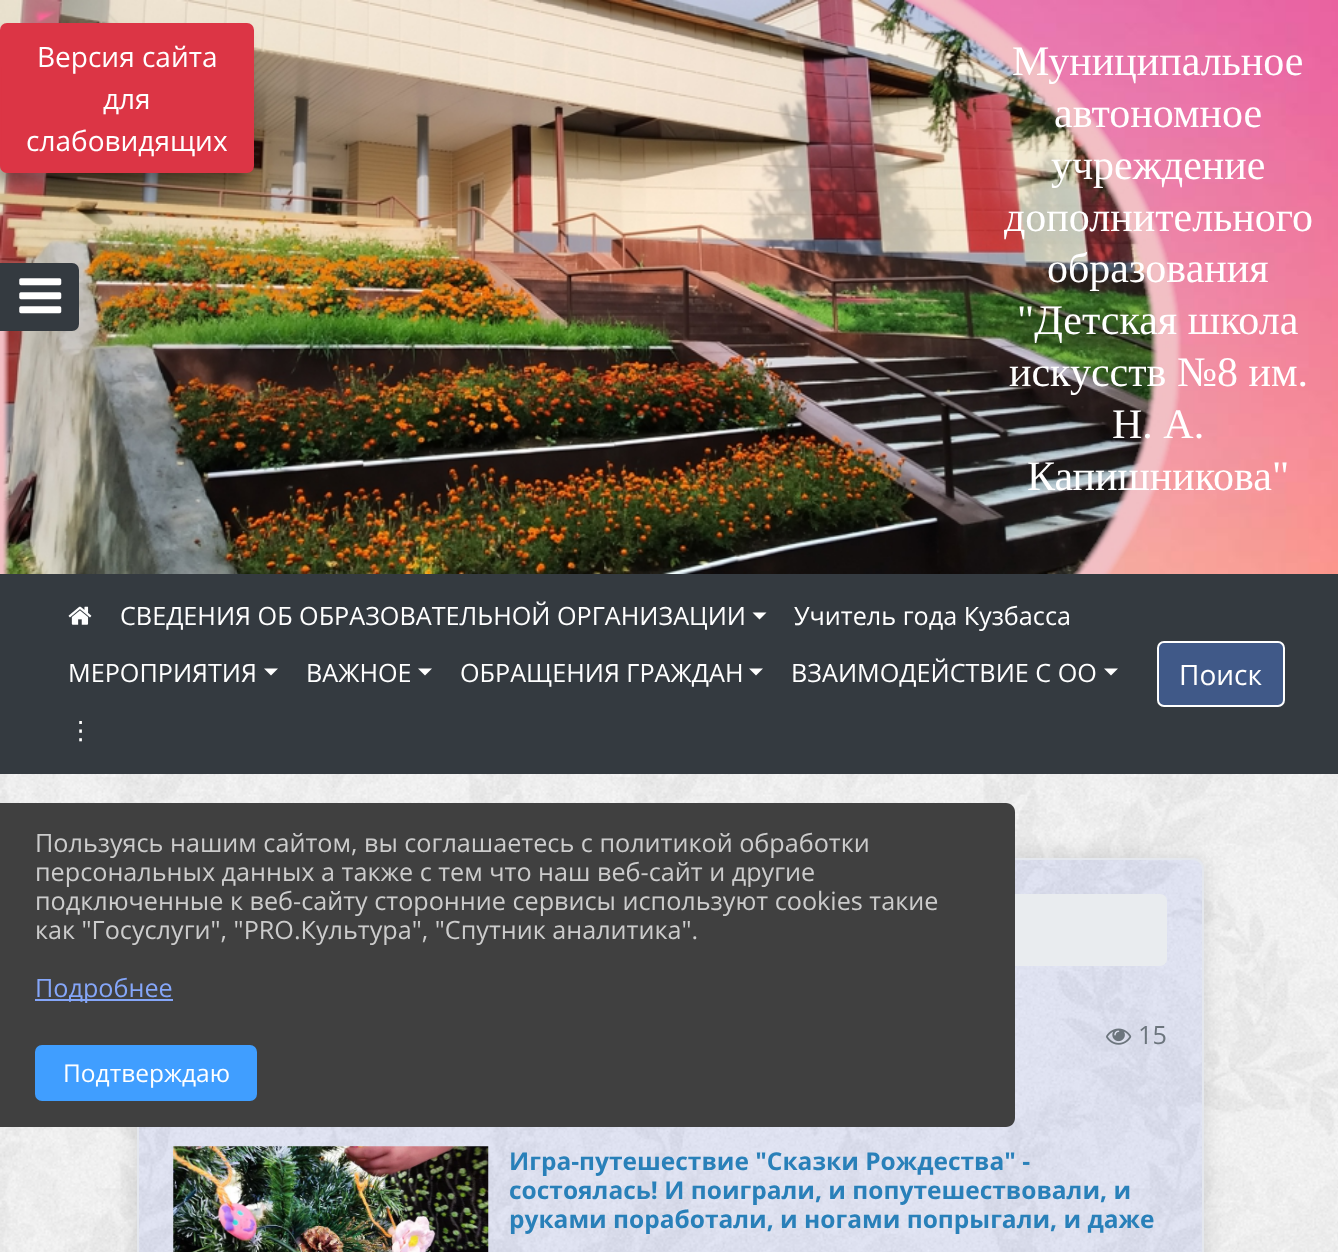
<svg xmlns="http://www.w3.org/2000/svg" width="1338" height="1252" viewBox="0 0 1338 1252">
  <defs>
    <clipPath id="clip1"><path d="M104 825H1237V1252H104ZM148 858H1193C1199 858 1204 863 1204 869V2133C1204 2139 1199 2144 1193 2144H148C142 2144 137 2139 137 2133V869C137 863 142 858 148 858Z" clip-rule="evenodd"/></clipPath>
  </defs>
  <rect width="100%" height="100%" fill="#fff"/>
  <image x="0" y="774" width="1338" height="478" href="img/1.png"/>
  <image x="0" y="0" width="1338" height="574" href="img/3.png"/>
  <rect x="-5" y="35" width="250" height="147" rx="5" fill="#00000059" filter="blur(7px)"/>
  <rect x="1" y="24" width="252" height="148" rx="6" fill="#dc3545" stroke="#dc3545" stroke-width="2"/>
  <path d="M1 264H72C75.5 264 78 266.5 78 270V324C78 327.5 75.5 330 72 330H1Z" fill="#343a40" stroke="#343a40" stroke-width="2"/>
  <image x="19" y="278" width="43" height="36" href="img/2.png"/>
  <path d="M0 574h1338v200H0z" fill="#343a40"/>
  <image x="68" y="606" width="24" height="19" href="img/4.png"/>
  <path d="M752.5 612.5H766.5L759.5 619.5Z" fill="#fff"/>
  <path d="M264 668.5H278L271 675.5Z" fill="#fff"/>
  <path d="M418 668.5H432L425 675.5Z" fill="#fff"/>
  <path d="M749 668.5H763L756 675.5Z" fill="#fff"/>
  <path d="M1104 668.5H1118L1111 675.5Z" fill="#fff"/>
  <rect x="1158" y="642" width="126" height="64" rx="6" fill="#405988" stroke="#fff" stroke-width="2"/>
  <g clip-path="url(#clip1)">
    <rect x="137" y="858" width="1067" height="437" rx="11" fill="#0000001f" filter="blur(10.5px)"/>
  </g>
  <path d="M148 858H1193C1199 858 1204 863 1204 869V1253H137V869C137 863 142 858 148 858Z" fill="#002fff12"/>
  <rect x="138" y="859" width="1065" height="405" rx="10" fill="none" stroke="#e4e7ed" stroke-width="2"/>
  <rect x="173" y="894" width="994" height="72" rx="7" fill="#e9ecef"/>
  <image x="1106" y="1028" width="26" height="17" href="img/5.png"/>
  <image x="173" y="1146" width="316" height="106" href="img/6.png"/>
  <path d="M0 803H1006C1011 803 1015 807 1015 812V1118C1015 1123 1011 1127 1006 1127H0Z" fill="#404040"/>
  <path d="M35 999h138v2H35z" fill="#85a6f9"/>
  <rect x="36" y="1046" width="220" height="54" rx="6" fill="#409eff" stroke="#409eff" stroke-width="2"/>
  <g font-family="Open Sans" font-size="28" fill="#fff">
    <text x="37" y="67">Версия сайта</text>
    <text x="103" y="109">для</text>
    <text x="26" y="151">слабовидящих</text>
  </g>
  <g font-family="Liberation Serif" font-size="42" fill="#fff">
    <text x="1012" y="75">Муниципальное</text>
    <text x="1054" y="127">автономное</text>
    <text x="1051" y="179">учреждение</text>
    <text x="1004" y="231">дополнительного</text>
    <text x="1047" y="282">образования</text>
    <text x="1017" y="334">"Детская школа</text>
    <text x="1009" y="386">искусств №8 им.</text>
    <text x="1112" y="438">Н. А.</text>
    <text x="1027" y="490">Капишникова"</text>
  </g>
  <g font-family="Open Sans" font-size="25.2" fill="#fff">
    <text x="120" y="625">СВЕДЕНИЯ ОБ ОБРАЗОВАТЕЛЬНОЙ ОРГАНИЗАЦИИ</text>
    <text x="794" y="625">Учитель года Кузбасса</text>
    <text x="68" y="682">МЕРОПРИЯТИЯ</text>
    <text x="306" y="682">ВАЖНОЕ</text>
    <text x="460" y="682">ОБРАЩЕНИЯ ГРАЖДАН</text>
    <text x="791" y="682">ВЗАИМОДЕЙСТВИЕ С ОО</text>
  </g>
  <text x="68" y="739" font-family="DejaVu Sans" font-size="25.2" fill="#fff">⋮</text>
  <text x="1179" y="685" font-family="Open Sans" font-size="28" fill="#fff">Поиск</text>
  <text x="1138" y="1044" font-family="Open Sans" font-size="25.2" fill="#6c757d">15</text>
  <g font-family="Open Sans" font-size="24.5" font-weight="bold" fill="#2980b9">
    <text x="509" y="1170">Игра-путешествие "Сказки Рождества" -</text>
    <text x="509" y="1199">состоялась! И поиграли, и попутешествовали, и</text>
    <text x="509" y="1228">руками поработали, и ногами попрыгали, и даже</text>
  </g>
  <g font-family="Open Sans" font-size="25.2" fill="#ccc">
    <text x="35" y="852">Пользуясь нашим сайтом, вы соглашаетесь с политикой обработки</text>
    <text x="35" y="881">персональных данных а также с тем что наш веб-сайт и другие</text>
    <text x="35" y="910">подключенные к веб-сайту сторонние сервисы используют cookies такие</text>
    <text x="35" y="939">как "Госуслуги", "PRO.Культура", "Спутник аналитика".</text>
  </g>
  <text x="35" y="997" font-family="Open Sans" font-size="25.2" fill="#85a6f9">Подробнее</text>
  <text x="63" y="1082" font-family="Open Sans" font-size="24.5" fill="#fff">Подтверждаю</text>
</svg>
